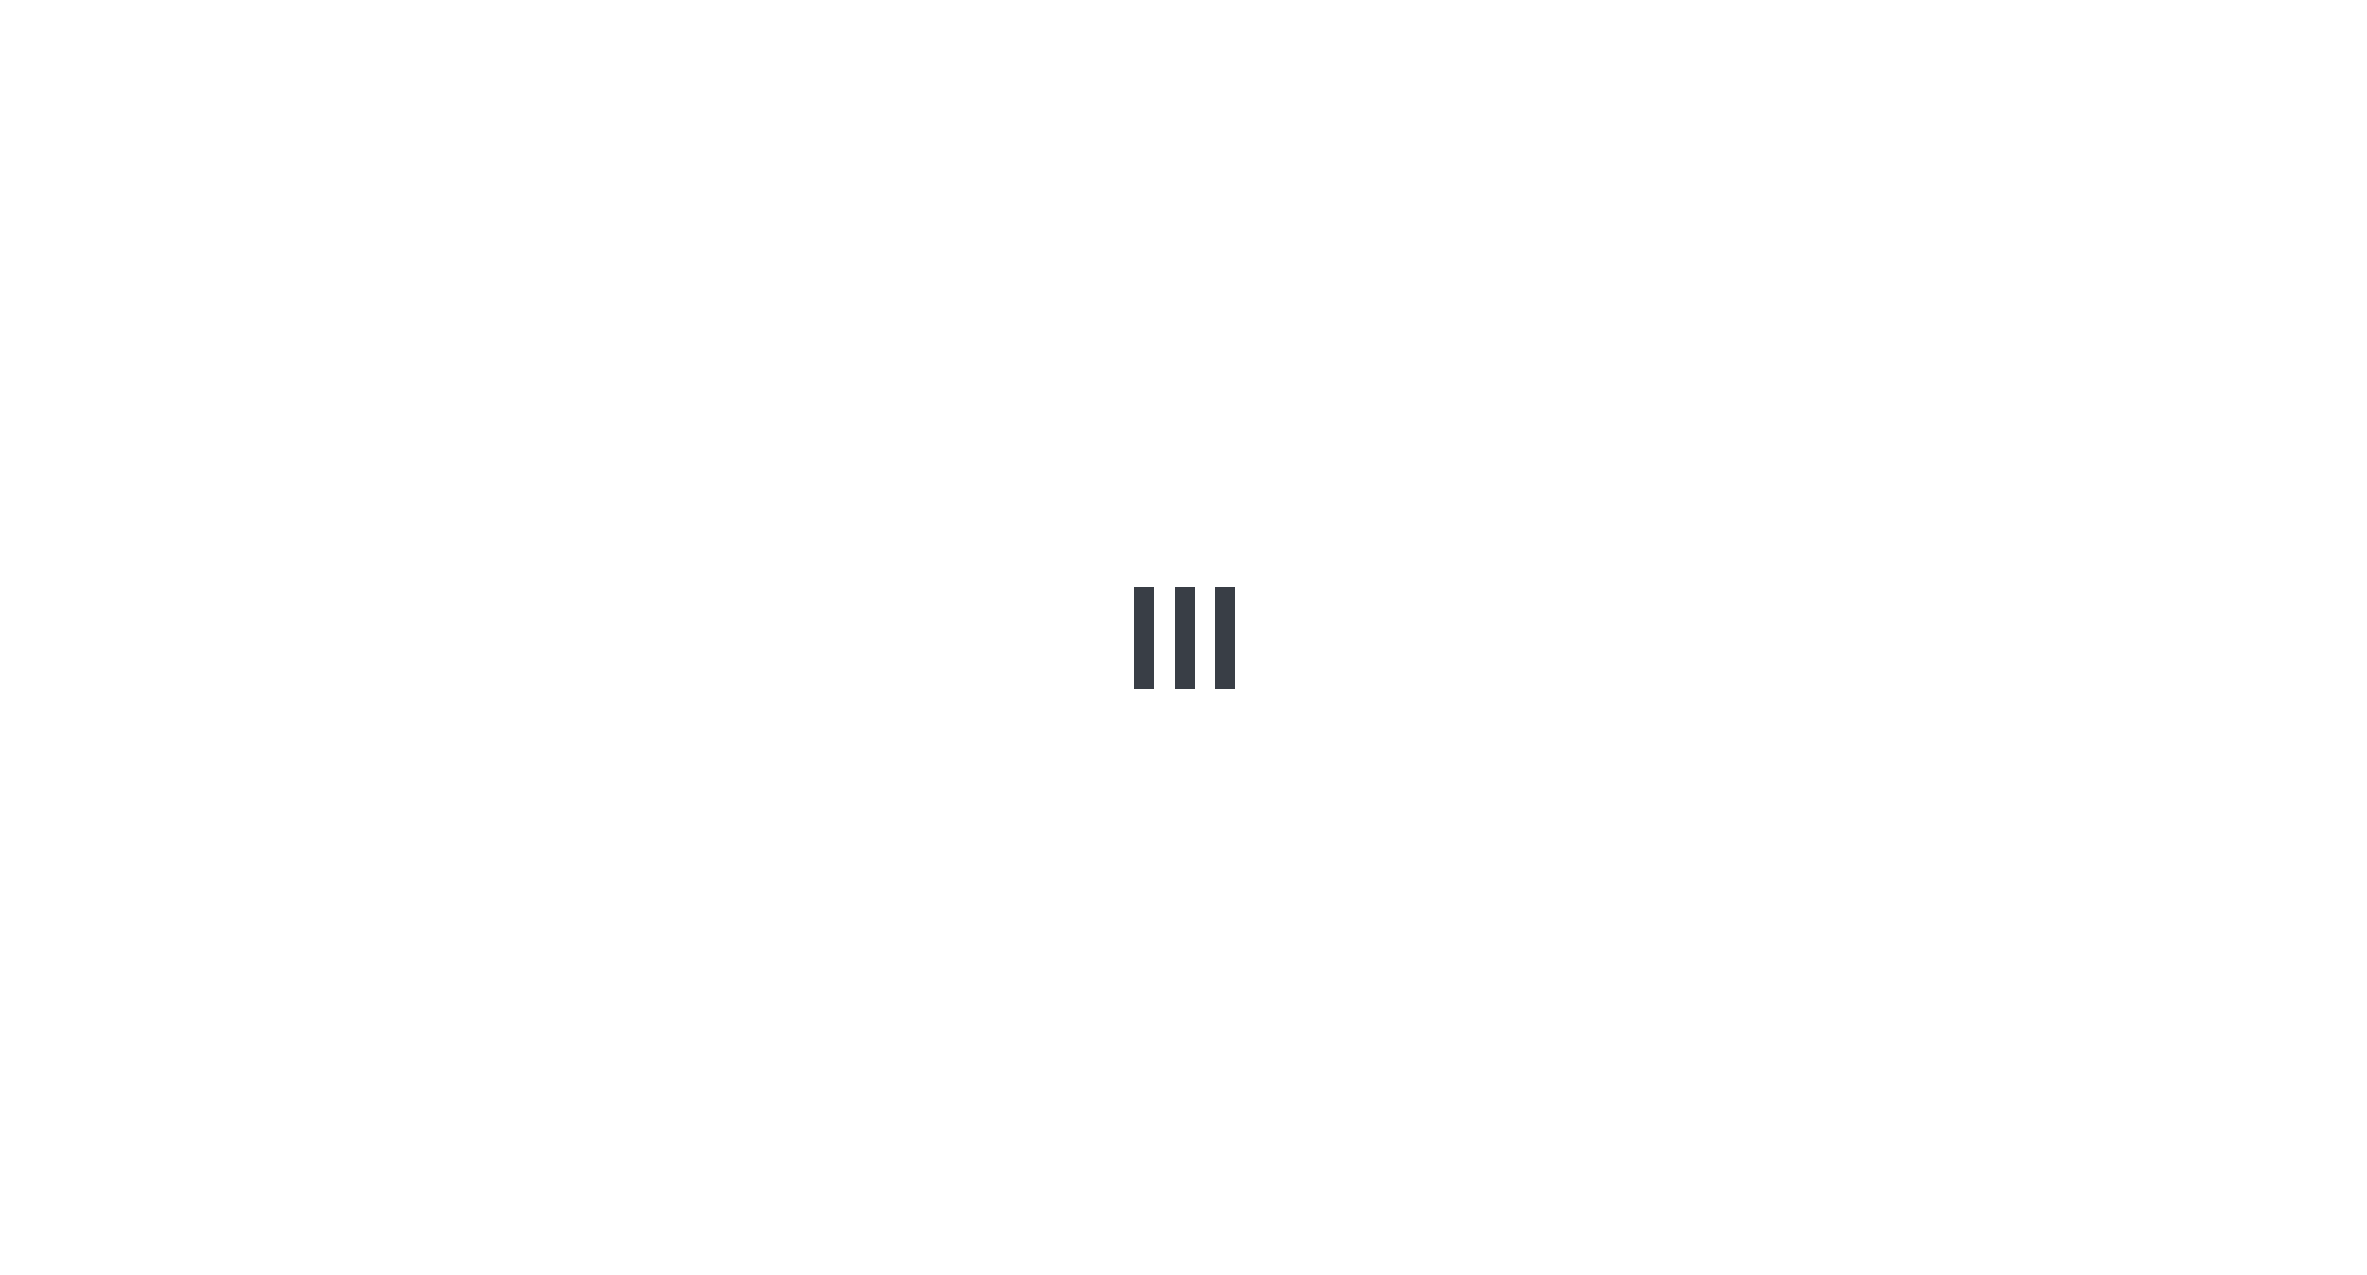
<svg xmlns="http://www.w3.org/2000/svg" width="2367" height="1275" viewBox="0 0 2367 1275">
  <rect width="100%" height="100%" fill="#fff"/>
  <path d="M1215 587h20v102H1215z" fill="#393e46"/>
  <path d="M1175 587h20v102H1175z" fill="#393e46"/>
  <path d="M1134 587h20v102H1134z" fill="#393e46"/>
</svg>
